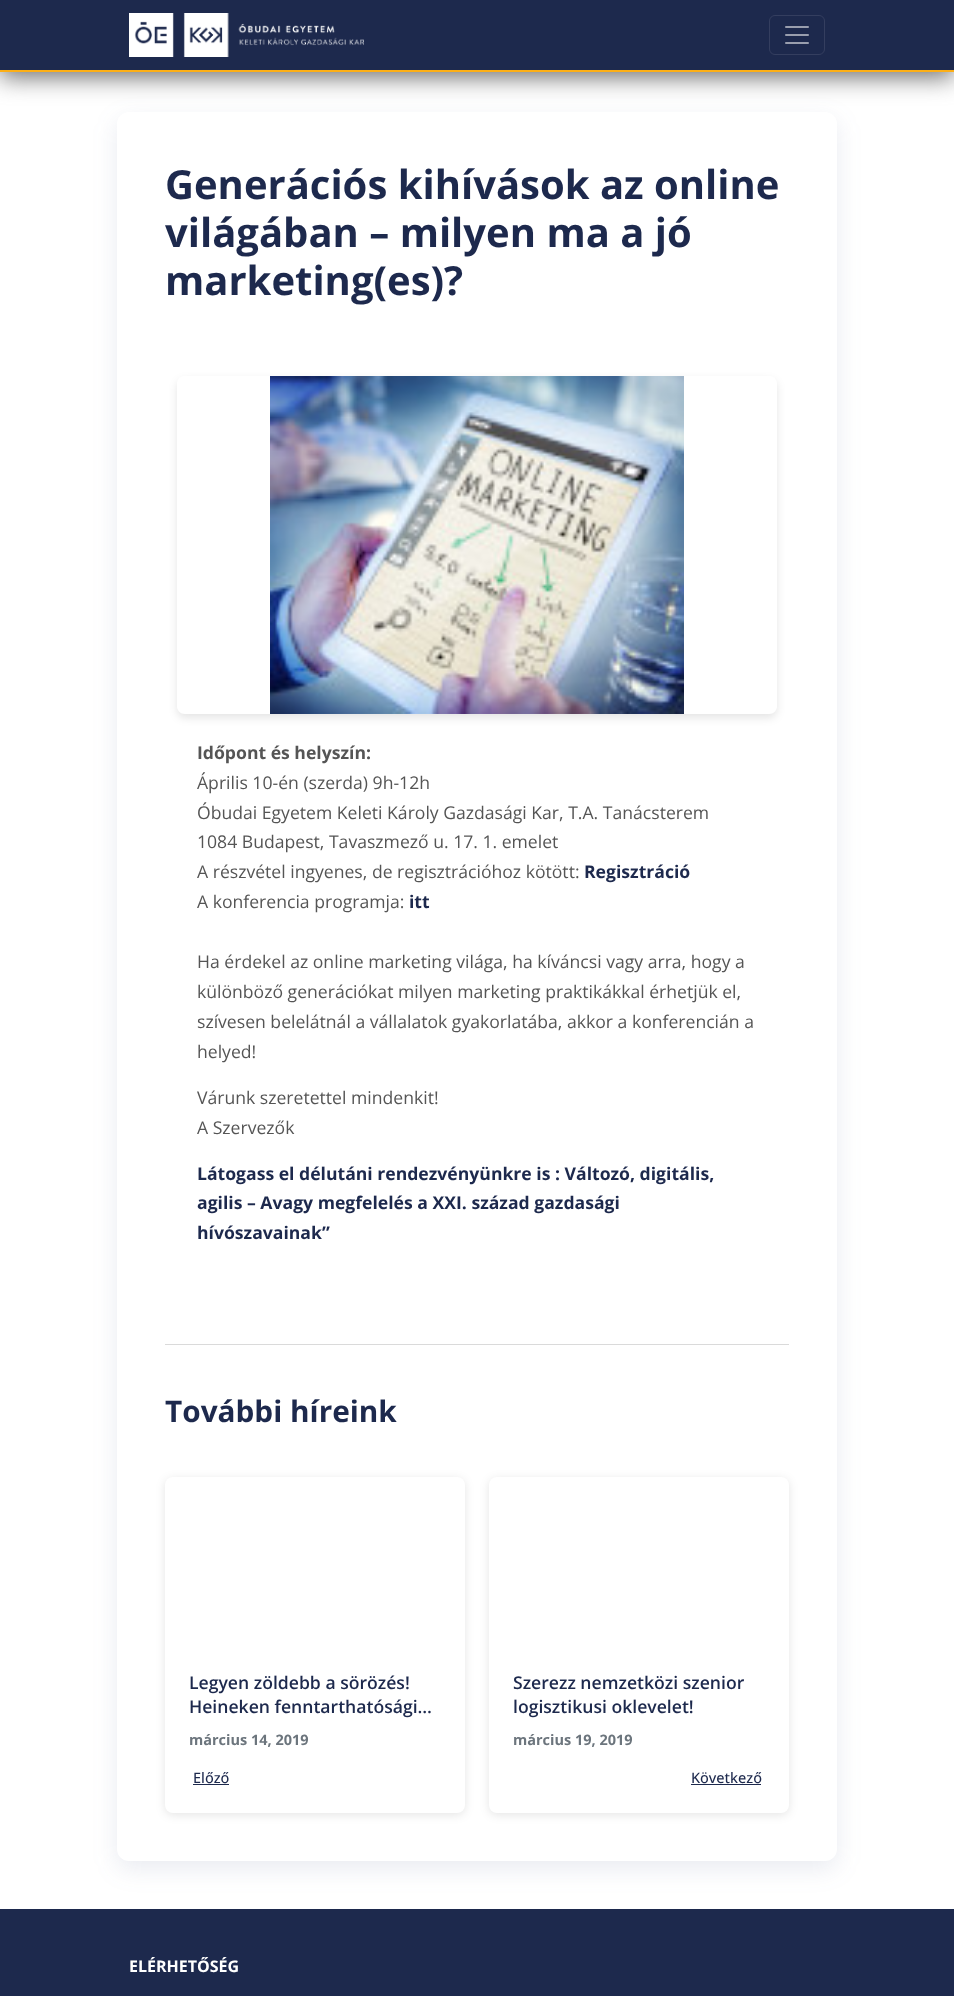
<svg xmlns="http://www.w3.org/2000/svg" width="954" height="1996" viewBox="0 0 954 1996">
  <defs>
    <clipPath id="clip1"><path d="M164 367H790V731H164ZM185 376H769C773.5 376 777 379.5 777 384V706C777 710.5 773.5 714 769 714H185C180.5 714 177 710.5 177 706V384C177 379.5 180.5 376 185 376Z" clip-rule="evenodd"/></clipPath>
  </defs>
  <rect width="100%" height="100%" fill="#fff"/>
  <rect x="117" y="120" width="720" height="1749" rx="12" fill="#495c881f" filter="blur(12px)"/>
  <rect x="117" y="112" width="720" height="1749" rx="12" fill="#fff"/>
  <path d="M0 5h954v72H0z" fill="#6b6b6b" filter="blur(12px)"/>
  <path d="M0 0h954v70H0z" fill="#1d294d"/>
  <path d="M0 70h954v2H0z" fill="#fcaf17"/>
  <image x="129" y="13" width="235" height="44" href="img/1.png"/>
  <rect x="769.5" y="15.5" width="55" height="39" rx="5.5" fill="none" stroke="#343e5f"/>
  <image x="785" y="26" width="24" height="18" href="img/2.png"/>
  <g clip-path="url(#clip1)">
    <rect x="177" y="380" width="600" height="338" rx="8" fill="#0000001a" filter="blur(4px)"/>
  </g>
  <image x="270" y="376" width="414" height="338" href="img/3.png"/>
  <path d="M165 1344h624v1H165z" fill="#dadada"/>
  <rect x="165" y="1479" width="300" height="336" rx="8" fill="#0000001a" filter="blur(5px)"/>
  <rect x="165" y="1477" width="300" height="336" rx="8" fill="#fff"/>
  <path d="M193 1784h36v1H193z" fill="#1d294d"/>
  <rect x="489" y="1479" width="300" height="336" rx="8" fill="#0000001a" filter="blur(5px)"/>
  <rect x="489" y="1477" width="300" height="336" rx="8" fill="#fff"/>
  <path d="M691 1784h70v1H691z" fill="#1d294d"/>
  <path d="M0 1909h954v87H0z" fill="#1d294d"/>
  <g font-family="Open Sans" font-size="40" font-weight="bold" fill="#1d294d">
    <text x="165" y="199">Generációs kihívások az online</text>
    <text x="165" y="247">világában – milyen ma a jó</text>
    <text x="165" y="295">marketing(es)?</text>
  </g>
  <text x="197" y="759" font-family="Open Sans" font-size="17.6" font-weight="bold" fill="#555">Időpont és helyszín:</text>
  <g font-family="Open Sans" font-size="17.6" fill="#555">
    <text x="197" y="789">Április 10-én (szerda) 9h-12h</text>
    <text x="197" y="819">Óbudai Egyetem Keleti Károly Gazdasági Kar, T.A. Tanácsterem</text>
    <text x="197" y="848">1084 Budapest, Tavaszmező u. 17. 1. emelet</text>
    <text x="197" y="878">A részvétel ingyenes, de regisztrációhoz kötött:</text>
  </g>
  <text x="584" y="878" font-family="Open Sans" font-size="17.6" font-weight="bold" fill="#1d294d">Regisztráció</text>
  <text x="197" y="908" font-family="Open Sans" font-size="17.6" fill="#555">A konferencia programja:</text>
  <text x="409" y="908" font-family="Open Sans" font-size="17.6" font-weight="bold" fill="#1d294d">itt</text>
  <g font-family="Open Sans" font-size="17.6" fill="#555">
    <text x="197" y="968">Ha érdekel az online marketing világa, ha kíváncsi vagy arra, hogy a</text>
    <text x="197" y="998">különböző generációkat milyen marketing praktikákkal érhetjük el,</text>
    <text x="197" y="1028">szívesen belelátnál a vállalatok gyakorlatába, akkor a konferencián a</text>
    <text x="197" y="1058">helyed!</text>
    <text x="197" y="1104">Várunk szeretettel mindenkit!</text>
    <text x="197" y="1134">A Szervezők</text>
  </g>
  <g font-family="Open Sans" font-size="17.6" font-weight="bold" fill="#1d294d">
    <text x="197" y="1180">Látogass el délutáni rendezvényünkre is : Változó, digitális,</text>
    <text x="197" y="1209">agilis – Avagy megfelelés a XXI. század gazdasági</text>
    <text x="197" y="1239">hívószavainak”</text>
  </g>
  <text x="165" y="1422" font-family="Open Sans" font-size="29.75" font-weight="bold" fill="#1d294d">További híreink</text>
  <g font-family="Open Sans" font-size="17.6" font-weight="600" fill="#1d294d">
    <text x="189" y="1689">Legyen zöldebb a sörözés!</text>
    <text x="189" y="1713">Heineken fenntarthatósági…</text>
  </g>
  <text x="189" y="1745" font-family="Open Sans" font-size="14.5" font-weight="bold" fill="#6c757d">március 14, 2019</text>
  <text x="193" y="1783" font-family="Open Sans" font-size="14.5" font-weight="500" fill="#1d294d">Előző</text>
  <g font-family="Open Sans" font-size="17.6" font-weight="600" fill="#1d294d">
    <text x="513" y="1689">Szerezz nemzetközi szenior</text>
    <text x="513" y="1713">logisztikusi oklevelet!</text>
  </g>
  <text x="513" y="1745" font-family="Open Sans" font-size="14.5" font-weight="bold" fill="#6c757d">március 19, 2019</text>
  <text x="691" y="1783" font-family="Open Sans" font-size="14.5" font-weight="500" fill="#1d294d">Következő</text>
  <text x="129" y="1972" font-family="Open Sans" font-size="16" font-weight="bold" fill="#fff">ELÉRHETŐSÉG</text>
</svg>
